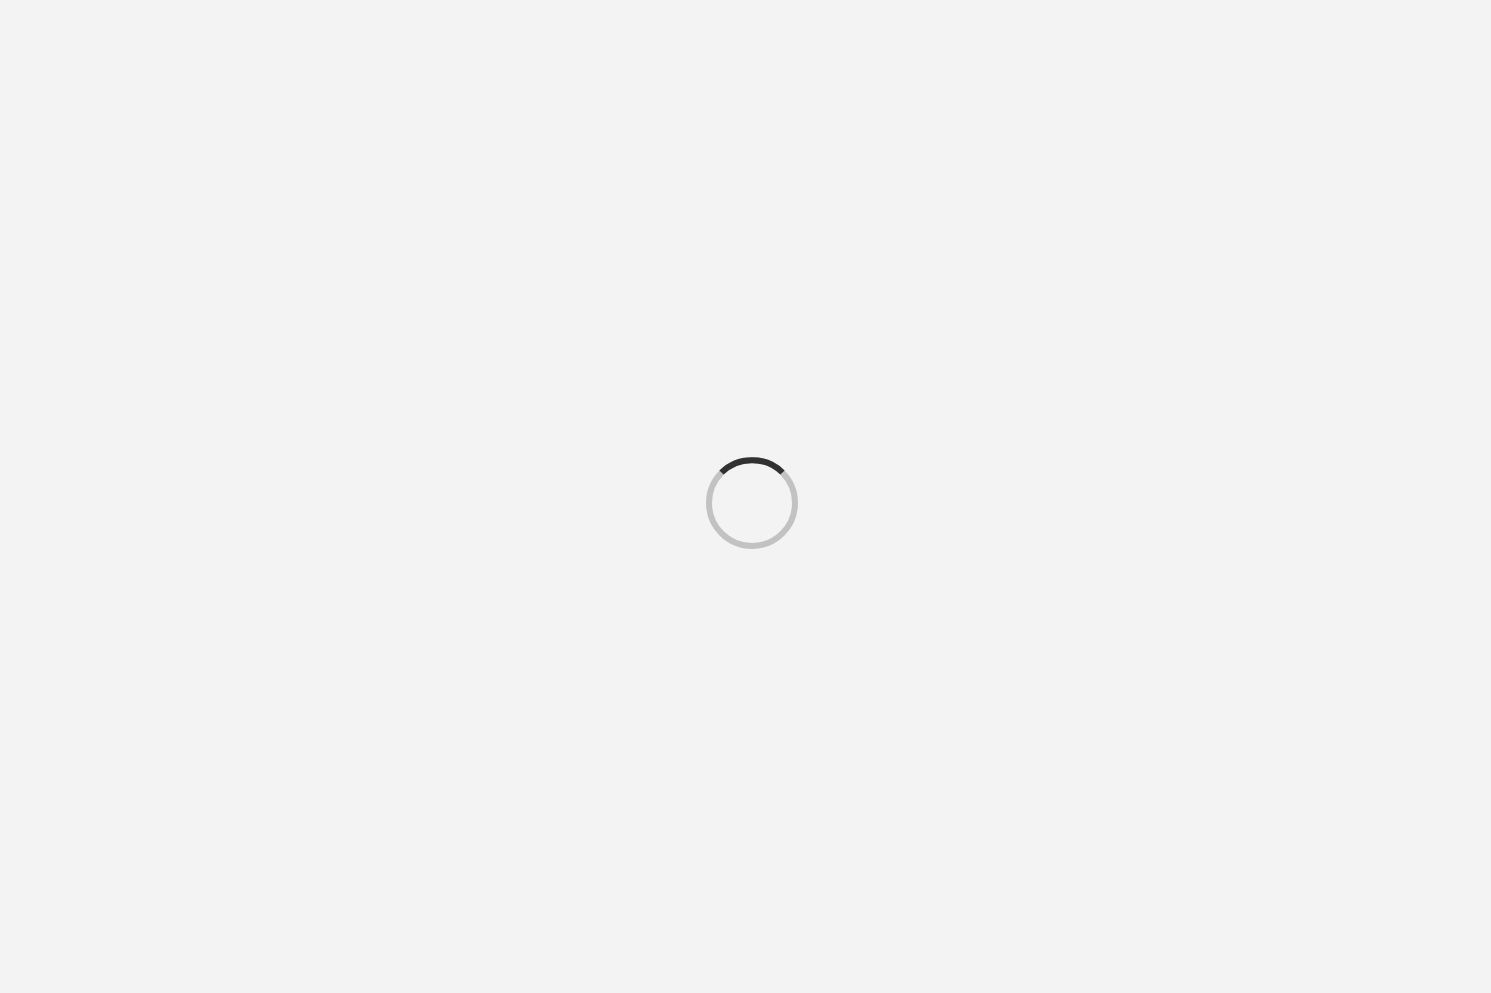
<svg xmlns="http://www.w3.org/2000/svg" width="1491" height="993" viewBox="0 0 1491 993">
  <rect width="100%" height="100%" fill="#f3f3f3"/>
  <circle cx="752" cy="503" r="43" fill="none" stroke="#c2c2c2" stroke-width="6"/>
  <path d="M721.5 472.5C738 456 766 456 782.5 472.5" fill="none" stroke="#000000bf" stroke-width="6"/>
</svg>
